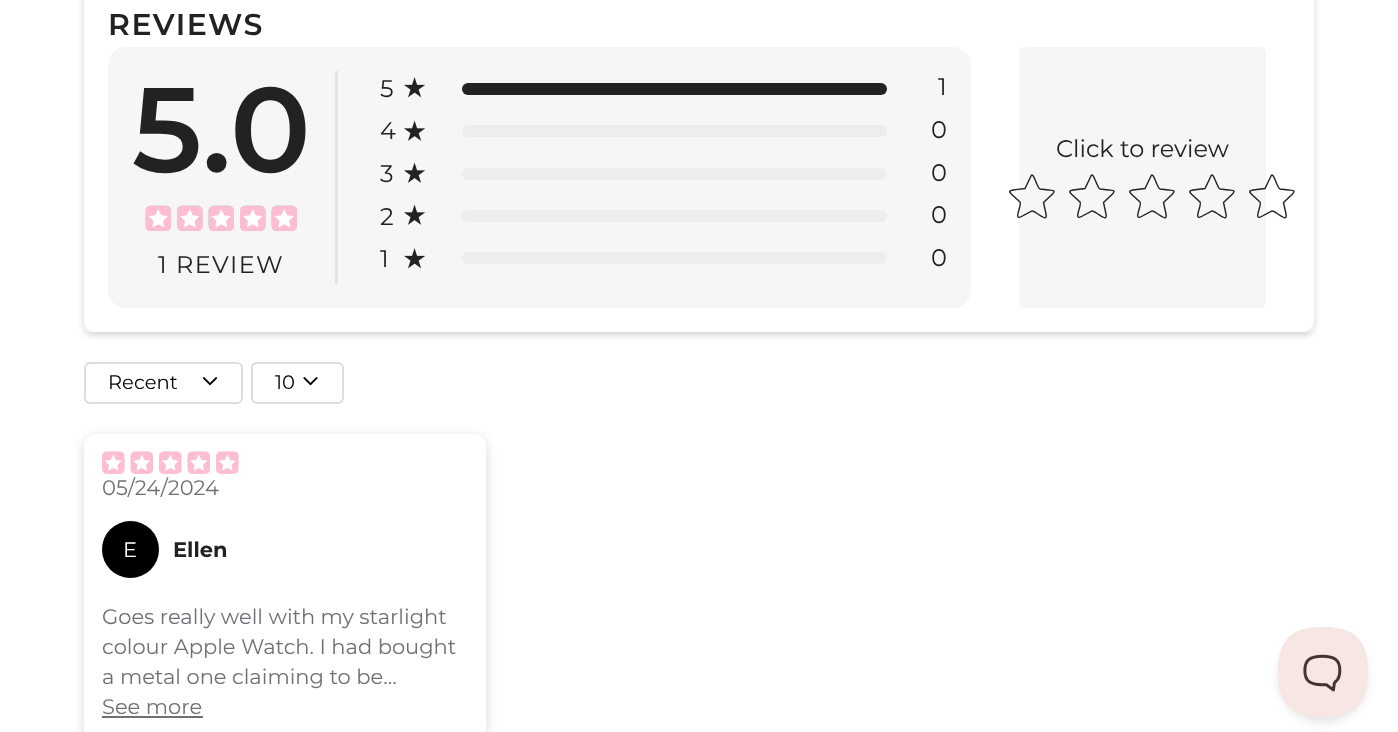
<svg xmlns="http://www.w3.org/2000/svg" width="1398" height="732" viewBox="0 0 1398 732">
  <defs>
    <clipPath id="clip1"><path d="M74 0H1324V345H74ZM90-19H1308C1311.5-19 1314-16.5 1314-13V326C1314 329.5 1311.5 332 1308 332H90C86.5 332 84 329.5 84 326V-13C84-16.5 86.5-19 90-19Z" clip-rule="evenodd"/></clipPath>
    <clipPath id="clip2"><path d="M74 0H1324V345H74ZM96-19H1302C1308.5-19 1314-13.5 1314-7V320C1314 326.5 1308.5 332 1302 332H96C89.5 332 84 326.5 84 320V-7C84-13.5 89.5-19 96-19Z" clip-rule="evenodd"/></clipPath>
  </defs>
  <rect width="100%" height="100%" fill="#fff"/>
  <g clip-path="url(#clip1)">
    <rect x="84" y="-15" width="1230" height="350" rx="6" fill="#1f21241a" filter="blur(3px)"/>
  </g>
  <g clip-path="url(#clip2)">
    <rect x="84" y="-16" width="1230" height="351" rx="12" fill="#1f21241a" filter="blur(3px)"/>
  </g>
  <rect x="108" y="47" width="863" height="261" rx="18" fill="#f6f6f6"/>
  <image x="145" y="205" width="26" height="26" href="img/1.png"/>
  <image x="146" y="206" width="25" height="25" href="img/2.png"/>
  <image x="148" y="209" width="20" height="19" href="img/3.png"/>
  <image x="177" y="205" width="26" height="26" href="img/4.png"/>
  <image x="177" y="206" width="26" height="25" href="img/5.png"/>
  <image x="180" y="209" width="20" height="19" href="img/6.png"/>
  <image x="208" y="205" width="26" height="26" href="img/1.png"/>
  <image x="209" y="206" width="25" height="25" href="img/2.png"/>
  <image x="211" y="209" width="20" height="19" href="img/3.png"/>
  <image x="240" y="205" width="26" height="26" href="img/4.png"/>
  <image x="240" y="206" width="26" height="25" href="img/5.png"/>
  <image x="243" y="209" width="20" height="19" href="img/6.png"/>
  <image x="271" y="205" width="26" height="26" href="img/1.png"/>
  <image x="272" y="206" width="25" height="25" href="img/2.png"/>
  <image x="274" y="209" width="20" height="19" href="img/3.png"/>
  <path d="M335 71h3v213H335z" fill="#e3e3e3"/>
  <image x="404" y="77" width="21" height="21" href="img/7.png"/>
  <rect x="462" y="83" width="425" height="12" rx="6" fill="#202223"/>
  <image x="404" y="120" width="22" height="21" href="img/8.png"/>
  <rect x="462" y="125" width="425" height="12" rx="6" fill="#ededed"/>
  <image x="404" y="162" width="22" height="21" href="img/8.png"/>
  <rect x="462" y="168" width="425" height="12" rx="6" fill="#ededed"/>
  <image x="404" y="204" width="22" height="21" href="img/8.png"/>
  <rect x="462" y="210" width="425" height="12" rx="6" fill="#ededed"/>
  <image x="404" y="248" width="21" height="21" href="img/7.png"/>
  <rect x="462" y="252" width="425" height="12" rx="6" fill="#ededed"/>
  <rect x="1019" y="47" width="247" height="261" rx="6" fill="#f6f6f6"/>
  <path d="M1031 176C1033.5 170.5 1037 188.5 1040 189L1048.5 190C1053 190.5 1056.5 190 1052 194.5L1043.5 202.5L1046 214C1048 224 1035.5 210.5 1032 211L1021.5 216.5C1012.5 221.5 1022.5 204.5 1020 202L1013.5 196C1010.5 193 1007 191 1013 190L1025 188.5Z" fill="none" stroke="#202223" stroke-width="1.4"/>
  <path d="M1091 176C1093.5 170.5 1097 188.5 1100 189L1108.5 190C1113 190.5 1116.5 190 1112 194.5L1103.5 202.5L1106 214C1108 224 1095.5 210.5 1092 211L1081.5 216.5C1072.5 221.5 1082.5 204.5 1080 202L1073.5 196C1070.5 193 1067 191 1073 190L1085 188.5Z" fill="none" stroke="#202223" stroke-width="1.4"/>
  <path d="M1151 176C1153.5 170.5 1157 188.5 1160 189L1168.5 190C1173 190.5 1176.5 190 1172 194.5L1163.5 202.5L1166 214C1168 224 1155.5 210.5 1152 211L1141.5 216.5C1132.5 221.5 1142.5 204.5 1140 202L1133.5 196C1130.5 193 1127 191 1133 190L1145 188.5Z" fill="none" stroke="#202223" stroke-width="1.4"/>
  <path d="M1211 176C1213.5 170.5 1217 188.5 1220 189L1228.5 190C1233 190.5 1236.5 190 1232 194.5L1223.5 202.5L1226 214C1228 224 1215.5 210.5 1212 211L1201.5 216.5C1192.5 221.5 1202.5 204.5 1200 202L1193.5 196C1190.5 193 1187 191 1193 190L1205 188.5Z" fill="none" stroke="#202223" stroke-width="1.4"/>
  <path d="M1271 176C1273.5 170.5 1277 188.5 1280 189L1288.5 190C1293 190.5 1296.5 190 1292 194.5L1283.5 202.5L1286 214C1288 224 1275.5 210.5 1272 211L1261.5 216.5C1252.5 221.5 1262.5 204.5 1260 202L1253.5 196C1250.5 193 1247 191 1253 190L1265 188.5Z" fill="none" stroke="#202223" stroke-width="1.4"/>
  <rect x="85" y="363" width="157" height="40" rx="5" fill="none" stroke="#ddd" stroke-width="2"/>
  <image x="202" y="377" width="16" height="9" href="img/9.png"/>
  <rect x="252" y="363" width="91" height="40" rx="5" fill="none" stroke="#ddd" stroke-width="2"/>
  <image x="303" y="377" width="15" height="9" href="img/10.png"/>
  <rect x="84" y="437" width="402" height="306" rx="12" fill="#00000026" filter="blur(6px)"/>
  <rect x="84" y="434" width="402" height="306" rx="12" fill="#fff"/>
  <image x="102" y="451" width="23" height="23" href="img/11.png"/>
  <image x="105" y="454" width="17" height="17" href="img/12.png"/>
  <image x="130" y="451" width="23" height="23" href="img/13.png"/>
  <image x="133" y="454" width="17" height="17" href="img/14.png"/>
  <image x="159" y="451" width="23" height="23" href="img/11.png"/>
  <image x="162" y="454" width="17" height="17" href="img/12.png"/>
  <image x="187" y="451" width="23" height="23" href="img/13.png"/>
  <image x="190" y="454" width="17" height="17" href="img/14.png"/>
  <image x="216" y="451" width="23" height="23" href="img/11.png"/>
  <image x="219" y="454" width="17" height="17" href="img/12.png"/>
  <circle cx="130.5" cy="549.5" r="28.5" fill="#000"/>
  <path d="M102 716h101v2H102z" fill="#6d7175"/>
  <rect x="1278" y="633" width="90" height="90" rx="45" fill="#0000001a" filter="blur(5px)"/>
  <image x="1278" y="627" width="90" height="90" href="img/15.png"/>
  <text x="108" y="35" font-family="Montserrat" font-size="30" font-weight="600" letter-spacing="1.5" fill="#202223">REVIEWS</text>
  <text x="132" y="172" font-family="Montserrat" font-size="120" font-weight="600" fill="#202223">5.0</text>
  <text x="158" y="273" font-family="Montserrat" font-size="24" letter-spacing="1.5" fill="#202223">1 REVIEW</text>
  <g font-family="Montserrat" font-size="24" fill="#202223">
    <text x="380" y="97">5</text>
    <text x="938" y="95">1</text>
    <text x="380" y="139">4</text>
    <text x="931" y="138">0</text>
    <text x="380" y="182">3</text>
    <text x="931" y="181">0</text>
    <text x="380" y="225">2</text>
    <text x="931" y="223">0</text>
    <text x="380" y="267">1</text>
    <text x="931" y="266">0</text>
    <text x="1056" y="157">Click to review</text>
  </g>
  <g font-family="Montserrat" font-size="19.5" fill="#000">
    <text x="108" y="389">Recent</text>
    <text x="275" y="389">10</text>
  </g>
  <text x="102" y="495" font-family="Montserrat" font-size="21" fill="#6d7175">05/24/2024</text>
  <text x="123" y="557" font-family="Montserrat" font-size="21" fill="#fff">E</text>
  <text x="173" y="557" font-family="Montserrat" font-size="21" font-weight="bold" fill="#202223">Ellen</text>
  <g font-family="Montserrat" font-size="21" fill="#6d7175">
    <text x="102" y="624">Goes really well with my starlight</text>
    <text x="102" y="654">colour Apple Watch. I had bought</text>
    <text x="102" y="684">a metal one claiming to be…</text>
    <text x="102" y="714">See more</text>
  </g>
</svg>
